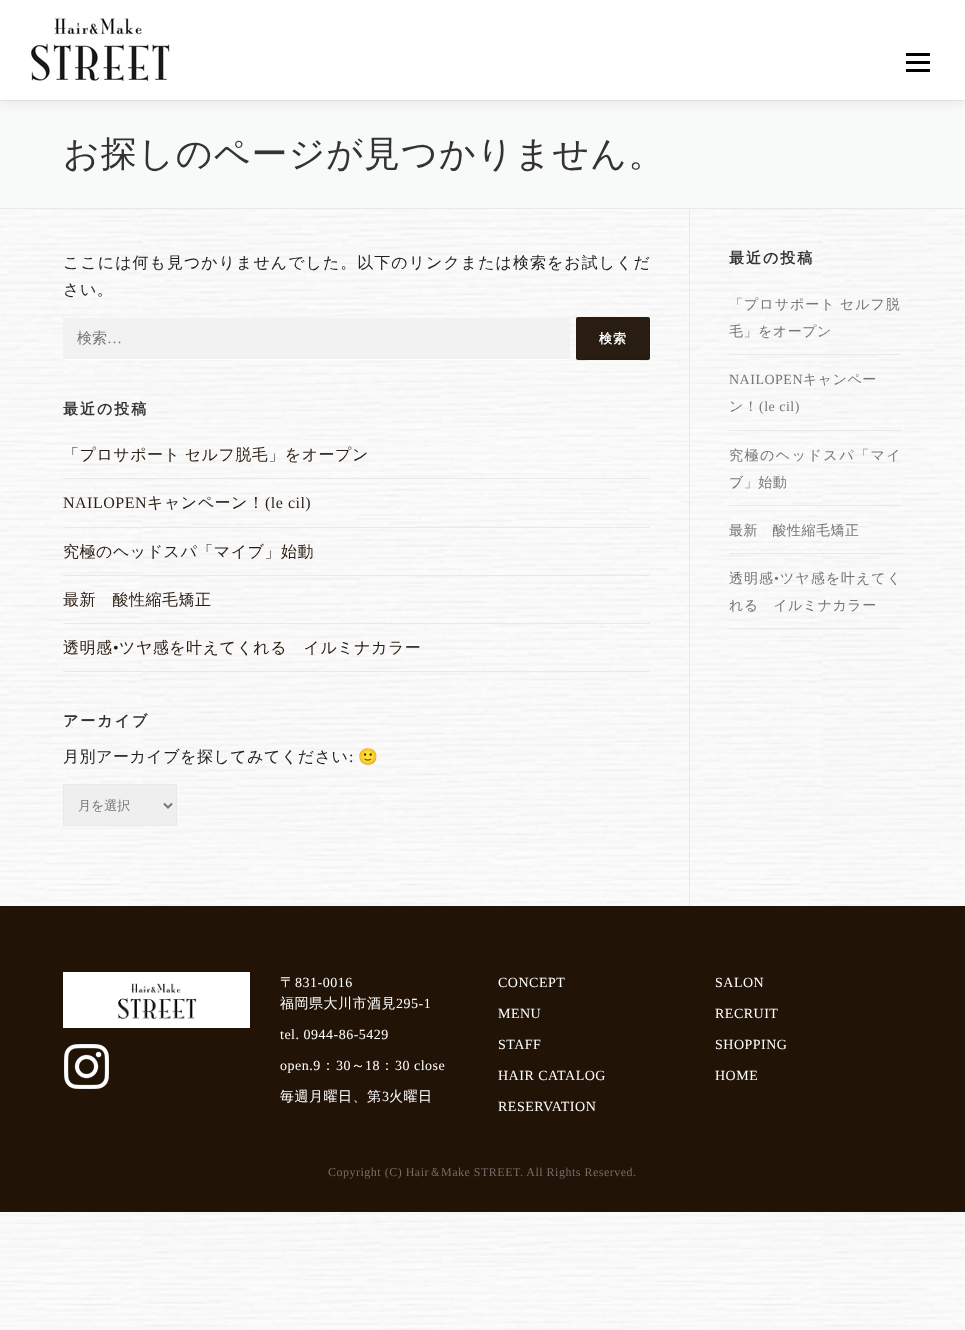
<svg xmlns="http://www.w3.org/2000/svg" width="965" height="1330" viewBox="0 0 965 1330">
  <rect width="100%" height="100%" fill="#fff"/>
  <image x="0" y="209" width="965" height="1121" href="img/1.png"/>
  <path d="M0 101h965v107H0z" fill="#f8f9f9"/>
  <path d="M0 100h965v1H0z" fill="#e9e9e9"/>
  <path d="M0 5h965v100H0z" fill="#3232320f" filter="blur(5px)"/>
  <path d="M0 1h965v99H0z" fill="#fff"/>
  <image x="30" y="17" width="140" height="64" href="img/2.png"/>
  <path d="M906 61h24v3H906z" fill="#000"/>
  <path d="M906 53h24v3H906z" fill="#000"/>
  <path d="M906 69h24v3H906z" fill="#000"/>
  <path d="M0 208h965v1H0z" fill="#e9e9e9"/>
  <path d="M689 209h1v697H689z" fill="#e9e9e9"/>
  <path d="M63 318h507v41H63z" fill="#f2f2f2"/>
  <path d="M63 359h507v1H63z" fill="#fff"/>
  <rect x="576" y="317" width="74" height="43" rx="2" fill="#291d11"/>
  <path d="M576 357C576 363 586 360 590 360H636C640 360 650 363 650 357L649 358L648 359H578C577 359 576 358 576 357Z" fill="#0000001a"/>
  <path d="M63 478h587v1H63z" fill="#e9e9e9"/>
  <path d="M63 527h587v1H63z" fill="#e9e9e9"/>
  <path d="M63 575h587v1H63z" fill="#e9e9e9"/>
  <path d="M63 623h587v1H63z" fill="#e9e9e9"/>
  <path d="M63 671h587v1H63z" fill="#e9e9e9"/>
  <path d="M63.5 784.5h113v41H63.5z" fill="#efefef" stroke="#e9e9e9"/>
  <path d="M164 803.5L168 807.5L172 803.5" fill="none" stroke="#777" stroke-width="2"/>
  <path d="M729 354h172v1H729z" fill="#e9e9e9"/>
  <path d="M729 430h172v1H729z" fill="#e9e9e9"/>
  <path d="M729 505h172v1H729z" fill="#e9e9e9"/>
  <path d="M729 553h172v1H729z" fill="#e9e9e9"/>
  <path d="M729 628h172v1H729z" fill="#e9e9e9"/>
  <path d="M0 906h965v306H0z" fill="#211306"/>
  <image x="63" y="972" width="187" height="56" href="img/3.png"/>
  <image x="64" y="1044" width="45" height="45" href="img/4.png"/>
  <text x="63" y="166" font-family="WenQuanYi Zen Hei" font-size="36" font-weight="500" letter-spacing="1" fill="#333">お探しのページが見つかりません。</text>
  <text x="63" y="268" font-family="WenQuanYi Zen Hei" font-size="16" font-weight="500" letter-spacing="1" fill="#222">ここには何も見つかりませんでした。以下のリンクまたは検索をお試しくだ</text>
  <text x="63" y="295" font-family="WenQuanYi Zen Hei" font-size="16" font-weight="500" letter-spacing="0.5" fill="#222">さい。</text>
  <text x="77" y="343" font-family="WenQuanYi Zen Hei" font-size="15" font-weight="500" fill="#757575">検索</text>
  <text x="107" y="343" font-family="Liberation Serif" font-size="15" fill="#757575">…</text>
  <text x="599" y="343" font-family="WenQuanYi Zen Hei" font-size="13" font-weight="bold" letter-spacing="1" fill="#fff">検索</text>
  <text x="63" y="414" font-family="WenQuanYi Zen Hei" font-size="15" font-weight="bold" letter-spacing="2" fill="#333">最近の投稿</text>
  <text x="63" y="460" word-spacing="-1" font-family="WenQuanYi Zen Hei" font-size="16" font-weight="500" letter-spacing="0.5" fill="#291d11">「プロサポート セルフ脱毛」をオープン</text>
  <text x="63" y="508" font-family="Liberation Serif" font-size="16" letter-spacing="0.5" fill="#291d11">NAILOPEN</text>
  <text x="147" y="508" font-family="WenQuanYi Zen Hei" font-size="16" font-weight="500" letter-spacing="0.5" fill="#291d11">キャンペーン！</text>
  <text x="265" y="508" font-family="Liberation Serif" font-size="16" letter-spacing="0.5" fill="#291d11">(le cil)</text>
  <g font-family="WenQuanYi Zen Hei" font-size="16" font-weight="500" letter-spacing="0.5" fill="#291d11">
    <text x="63" y="557">究極のヘッドスパ「マイブ」始動</text>
    <text x="63" y="605">最新　酸性縮毛矯正</text>
    <text x="63" y="653">透明感</text>
  </g>
  <text x="113" y="653" font-family="Liberation Serif" font-size="16" letter-spacing="0.5" fill="#291d11">•</text>
  <text x="119" y="653" font-family="WenQuanYi Zen Hei" font-size="16" font-weight="500" letter-spacing="0.5" fill="#291d11">ツヤ感を叶えてくれる　イルミナカラー</text>
  <text x="63" y="726" font-family="WenQuanYi Zen Hei" font-size="15" font-weight="bold" letter-spacing="2" fill="#333">アーカイブ</text>
  <text x="63" y="762" font-family="WenQuanYi Zen Hei" font-size="16" font-weight="500" letter-spacing="0.5" fill="#222">月別アーカイブを探してみてください</text>
  <text x="349" y="762" font-family="Liberation Serif" font-size="16" letter-spacing="0.5" fill="#222">:</text>
  <text x="358" y="762" font-family="Noto Color Emoji" font-size="16" letter-spacing="0.5" fill="#222">🙂</text>
  <text x="78" y="810" font-family="WenQuanYi Zen Hei" font-size="13" font-weight="500" fill="#757575">月を選択</text>
  <text x="729" y="263" font-family="WenQuanYi Zen Hei" font-size="15" font-weight="bold" letter-spacing="2" fill="#333">最近の投稿</text>
  <text x="729" y="309" word-spacing="-1" font-family="WenQuanYi Zen Hei" font-size="14" font-weight="500" letter-spacing="1" fill="#757575">「プロサポート セルフ脱</text>
  <text x="729" y="336" font-family="WenQuanYi Zen Hei" font-size="14" font-weight="500" letter-spacing="0.5" fill="#757575">毛」をオープン</text>
  <text x="729" y="384" font-family="Liberation Serif" font-size="14" letter-spacing="0.5" fill="#757575">NAILOPEN</text>
  <g font-family="WenQuanYi Zen Hei" font-size="14" font-weight="500" letter-spacing="0.5" fill="#757575">
    <text x="803" y="384">キャンペー</text>
    <text x="729" y="411">ン！</text>
  </g>
  <text x="759" y="411" font-family="Liberation Serif" font-size="14" letter-spacing="0.5" fill="#757575">(le cil)</text>
  <text x="729" y="460" font-family="WenQuanYi Zen Hei" font-size="14" font-weight="500" letter-spacing="1.5" fill="#757575">究極のヘッドスパ「マイ</text>
  <g font-family="WenQuanYi Zen Hei" font-size="14" font-weight="500" letter-spacing="0.5" fill="#757575">
    <text x="729" y="487">ブ」始動</text>
    <text x="729" y="535">最新　酸性縮毛矯正</text>
  </g>
  <text x="729" y="583" font-family="WenQuanYi Zen Hei" font-size="14" font-weight="500" letter-spacing="1" fill="#757575">透明感</text>
  <text x="774" y="583" font-family="Liberation Serif" font-size="14" letter-spacing="1" fill="#757575">•</text>
  <text x="780" y="583" font-family="WenQuanYi Zen Hei" font-size="14" font-weight="500" letter-spacing="1" fill="#757575">ツヤ感を叶えてく</text>
  <text x="729" y="610" font-family="WenQuanYi Zen Hei" font-size="14" font-weight="500" letter-spacing="0.5" fill="#757575">れる　イルミナカラー</text>
  <text x="280" y="987" font-family="WenQuanYi Zen Hei" font-size="14" font-weight="500" letter-spacing="0.5" fill="#fff">〒</text>
  <text x="295" y="987" font-family="Liberation Serif" font-size="14" letter-spacing="0.5" fill="#fff">831-0016</text>
  <text x="280" y="1008" font-family="WenQuanYi Zen Hei" font-size="14" font-weight="500" letter-spacing="0.5" fill="#fff">福岡県大川市酒見</text>
  <g font-family="Liberation Serif" font-size="14" letter-spacing="0.5" fill="#fff">
    <text x="396" y="1008">295-1</text>
    <text x="280" y="1039">tel. 0944-86-5429</text>
    <text x="280" y="1070">open.9</text>
  </g>
  <text x="321" y="1070" font-family="WenQuanYi Zen Hei" font-size="14" font-weight="500" letter-spacing="0.5" fill="#fff">：</text>
  <text x="336" y="1070" font-family="Liberation Serif" font-size="14" letter-spacing="0.5" fill="#fff">30</text>
  <text x="351" y="1070" font-family="WenQuanYi Zen Hei" font-size="14" font-weight="500" letter-spacing="0.5" fill="#fff">～</text>
  <text x="365" y="1070" font-family="Liberation Serif" font-size="14" letter-spacing="0.5" fill="#fff">18</text>
  <text x="380" y="1070" font-family="WenQuanYi Zen Hei" font-size="14" font-weight="500" letter-spacing="0.5" fill="#fff">：</text>
  <text x="395" y="1070" font-family="Liberation Serif" font-size="14" letter-spacing="0.5" fill="#fff">30 close</text>
  <text x="280" y="1101" font-family="WenQuanYi Zen Hei" font-size="14" font-weight="500" letter-spacing="0.5" fill="#fff">毎週月曜日、第</text>
  <text x="382" y="1101" font-family="Liberation Serif" font-size="14" letter-spacing="0.5" fill="#fff">3</text>
  <text x="389" y="1101" font-family="WenQuanYi Zen Hei" font-size="14" font-weight="500" letter-spacing="0.5" fill="#fff">火曜日</text>
  <g font-family="Liberation Serif" font-size="14" letter-spacing="0.5" fill="#fff">
    <text x="498" y="987">CONCEPT</text>
    <text x="498" y="1018">MENU</text>
    <text x="498" y="1049">STAFF</text>
    <text x="498" y="1080">HAIR CATALOG</text>
    <text x="498" y="1111">RESERVATION</text>
    <text x="715" y="987">SALON</text>
    <text x="715" y="1018">RECRUIT</text>
    <text x="715" y="1049">SHOPPING</text>
    <text x="715" y="1080">HOME</text>
  </g>
  <text x="328" y="1176" font-family="Liberation Serif" font-size="12" letter-spacing="0.5" fill="#756f69">Copyright (C) Hair</text>
  <text x="429" y="1176" font-family="WenQuanYi Zen Hei" font-size="12" font-weight="500" letter-spacing="0.5" fill="#756f69">＆</text>
  <text x="441" y="1176" font-family="Liberation Serif" font-size="12" letter-spacing="0.5" fill="#756f69">Make STREET. All Rights Reserved.</text>
</svg>
